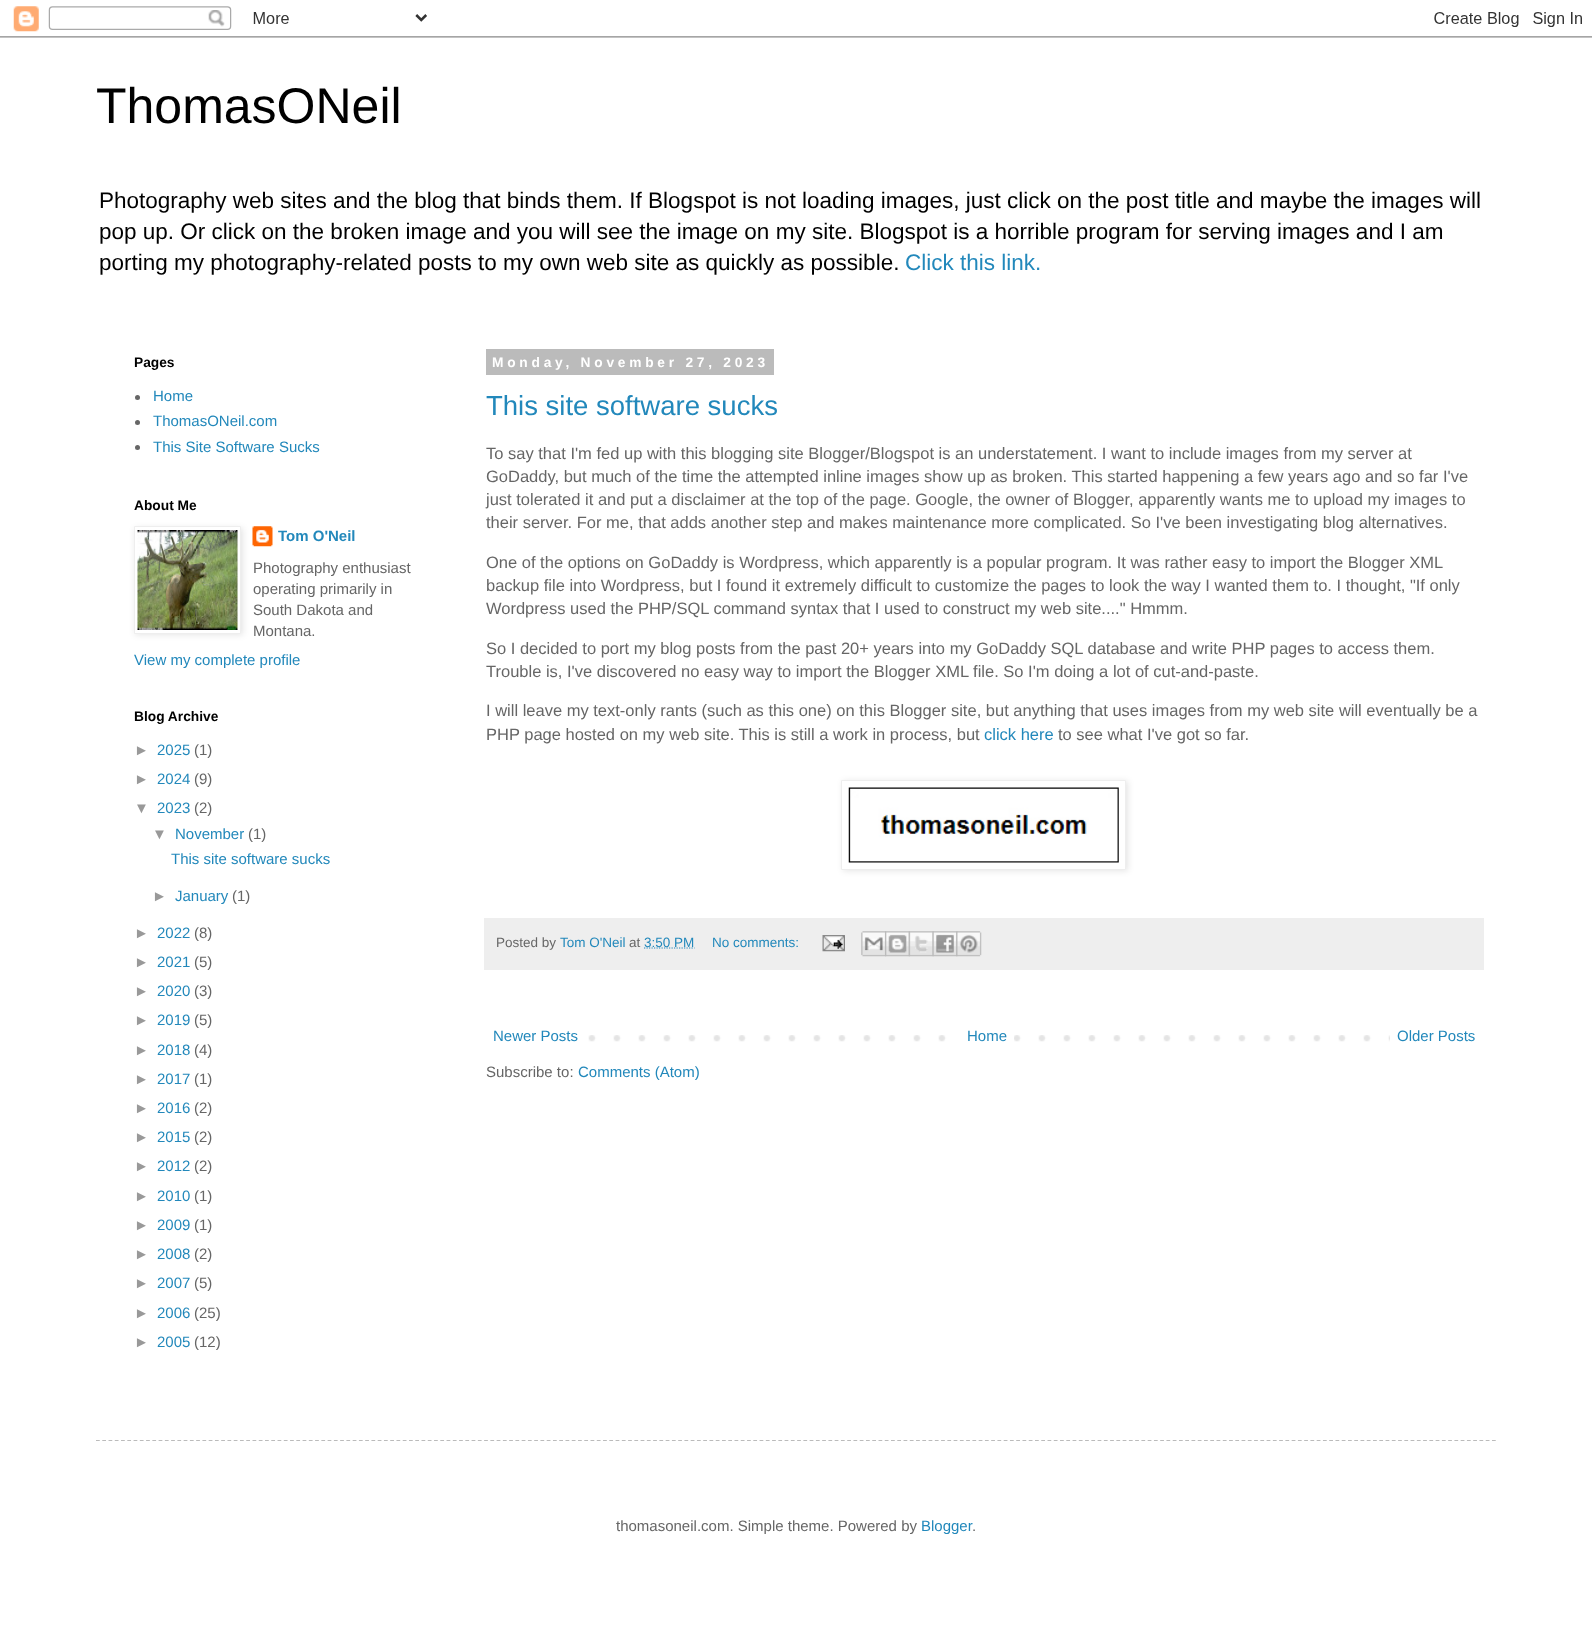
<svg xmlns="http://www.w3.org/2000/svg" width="1592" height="1625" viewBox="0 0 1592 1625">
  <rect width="100%" height="100%" fill="#fff"/>
  <image x="0" y="6" width="1592" height="32" href="img/1.png"/>
  <circle cx="137.5" cy="397.5" r="2.5" fill="#666"/>
  <circle cx="137.5" cy="422.5" r="2.5" fill="#666"/>
  <circle cx="137.5" cy="447.5" r="2.5" fill="#666"/>
  <image x="252" y="526" width="21" height="21" href="img/3.png"/>
  <path d="M135 528h108v107H135z" fill="#0000001a" filter="blur(3px)"/>
  <path d="M134.5 526.5h106v107H134.5z" fill="#fff" stroke="#eee"/>
  <image x="137" y="530" width="101" height="100" href="img/2.png"/>
  <path d="M486 349h288v26H486z" fill="#bbb"/>
  <path d="M843 781h285v90H843z" fill="#0000001a" filter="blur(3px)"/>
  <path d="M841.5 780.5h284v89H841.5z" fill="#fff" stroke="#eee"/>
  <image x="848" y="787" width="271" height="76" href="img/4.png"/>
  <path d="M484 918h1000v52H484z" fill="#eee"/>
  <path d="M644 948H694.5" fill="none" stroke="#28b" stroke-width="1.2" stroke-dasharray="1.25 1.25"/>
  <image x="822" y="935" width="23" height="17" href="img/5.png"/>
  <image x="861" y="931" width="26" height="26" href="img/6.png"/>
  <image x="885" y="931" width="25" height="26" href="img/7.png"/>
  <image x="908" y="931" width="26" height="26" href="img/8.png"/>
  <image x="932" y="931" width="26" height="26" href="img/9.png"/>
  <image x="956" y="931" width="26" height="26" href="img/10.png"/>
  <image x="588" y="1035" width="802" height="7" href="img/11.png"/>
  <path d="M963 1035h51v7H963z" fill="#fff"/>
  <path d="M96 1440.5H1496" fill="none" stroke="#bbb" stroke-width="1.2" stroke-dasharray="3.75 2.51"/>
  <text x="96" y="123" font-family="Liberation Sans" font-size="50" fill="#000">ThomasONeil</text>
  <g font-family="Liberation Sans" font-size="22.5" fill="#000">
    <text x="99" y="208">Photography web sites and the blog that binds them. If Blogspot is not loading images, just click on the post title and maybe the images will</text>
    <text x="99" y="239">pop up. Or click on the broken image and you will see the image on my site. Blogspot is a horrible program for serving images and I am</text>
    <text x="99" y="270">porting my photography-related posts to my own web site as quickly as possible.</text>
  </g>
  <text x="905" y="270" font-family="Liberation Sans" font-size="22.5" fill="#28b">Click this link.</text>
  <text x="134" y="367" font-family="Liberation Sans" font-size="13.75" font-weight="bold" fill="#000">Pages</text>
  <g font-family="Liberation Sans" font-size="15" fill="#28b">
    <text x="153" y="401">Home</text>
    <text x="153" y="426">ThomasONeil.com</text>
    <text x="153" y="452">This Site Software Sucks</text>
  </g>
  <text x="134" y="510" font-family="Liberation Sans" font-size="13.75" font-weight="bold" fill="#000">About Me</text>
  <text x="278" y="541" font-family="Liberation Sans" font-size="15" font-weight="bold" fill="#28b">Tom O'Neil</text>
  <g font-family="Liberation Sans" font-size="15" fill="#666">
    <text x="253" y="573">Photography enthusiast</text>
    <text x="253" y="594">operating primarily in</text>
    <text x="253" y="615">South Dakota and</text>
    <text x="253" y="636">Montana.</text>
  </g>
  <text x="134" y="665" font-family="Liberation Sans" font-size="15" fill="#28b">View my complete profile</text>
  <text x="134" y="721" font-family="Liberation Sans" font-size="13.75" font-weight="bold" fill="#000">Blog Archive</text>
  <text x="134" y="755" font-family="Liberation Sans" font-size="15" fill="#999">►</text>
  <text x="157" y="755" font-family="Liberation Sans" font-size="15" fill="#28b">2025</text>
  <text x="194" y="755" font-family="Liberation Sans" font-size="15" fill="#666">(1)</text>
  <text x="134" y="784" font-family="Liberation Sans" font-size="15" fill="#999">►</text>
  <text x="157" y="784" font-family="Liberation Sans" font-size="15" fill="#28b">2024</text>
  <text x="194" y="784" font-family="Liberation Sans" font-size="15" fill="#666">(9)</text>
  <text x="134" y="813" font-family="Liberation Sans" font-size="15" fill="#999">▼</text>
  <text x="157" y="813" font-family="Liberation Sans" font-size="15" fill="#28b">2023</text>
  <text x="194" y="813" font-family="Liberation Sans" font-size="15" fill="#666">(2)</text>
  <text x="152" y="839" font-family="Liberation Sans" font-size="15" fill="#999">▼</text>
  <text x="175" y="839" font-family="Liberation Sans" font-size="15" fill="#28b">November</text>
  <text x="248" y="839" font-family="Liberation Sans" font-size="15" fill="#666">(1)</text>
  <text x="171" y="864" font-family="Liberation Sans" font-size="15" fill="#28b">This site software sucks</text>
  <text x="152" y="901" font-family="Liberation Sans" font-size="15" fill="#999">►</text>
  <text x="175" y="901" font-family="Liberation Sans" font-size="15" fill="#28b">January</text>
  <text x="232" y="901" font-family="Liberation Sans" font-size="15" fill="#666">(1)</text>
  <text x="134" y="938" font-family="Liberation Sans" font-size="15" fill="#999">►</text>
  <text x="157" y="938" font-family="Liberation Sans" font-size="15" fill="#28b">2022</text>
  <text x="194" y="938" font-family="Liberation Sans" font-size="15" fill="#666">(8)</text>
  <text x="134" y="967" font-family="Liberation Sans" font-size="15" fill="#999">►</text>
  <text x="157" y="967" font-family="Liberation Sans" font-size="15" fill="#28b">2021</text>
  <text x="194" y="967" font-family="Liberation Sans" font-size="15" fill="#666">(5)</text>
  <text x="134" y="996" font-family="Liberation Sans" font-size="15" fill="#999">►</text>
  <text x="157" y="996" font-family="Liberation Sans" font-size="15" fill="#28b">2020</text>
  <text x="194" y="996" font-family="Liberation Sans" font-size="15" fill="#666">(3)</text>
  <text x="134" y="1025" font-family="Liberation Sans" font-size="15" fill="#999">►</text>
  <text x="157" y="1025" font-family="Liberation Sans" font-size="15" fill="#28b">2019</text>
  <text x="194" y="1025" font-family="Liberation Sans" font-size="15" fill="#666">(5)</text>
  <text x="134" y="1055" font-family="Liberation Sans" font-size="15" fill="#999">►</text>
  <text x="157" y="1055" font-family="Liberation Sans" font-size="15" fill="#28b">2018</text>
  <text x="194" y="1055" font-family="Liberation Sans" font-size="15" fill="#666">(4)</text>
  <text x="134" y="1084" font-family="Liberation Sans" font-size="15" fill="#999">►</text>
  <text x="157" y="1084" font-family="Liberation Sans" font-size="15" fill="#28b">2017</text>
  <text x="194" y="1084" font-family="Liberation Sans" font-size="15" fill="#666">(1)</text>
  <text x="134" y="1113" font-family="Liberation Sans" font-size="15" fill="#999">►</text>
  <text x="157" y="1113" font-family="Liberation Sans" font-size="15" fill="#28b">2016</text>
  <text x="194" y="1113" font-family="Liberation Sans" font-size="15" fill="#666">(2)</text>
  <text x="134" y="1142" font-family="Liberation Sans" font-size="15" fill="#999">►</text>
  <text x="157" y="1142" font-family="Liberation Sans" font-size="15" fill="#28b">2015</text>
  <text x="194" y="1142" font-family="Liberation Sans" font-size="15" fill="#666">(2)</text>
  <text x="134" y="1171" font-family="Liberation Sans" font-size="15" fill="#999">►</text>
  <text x="157" y="1171" font-family="Liberation Sans" font-size="15" fill="#28b">2012</text>
  <text x="194" y="1171" font-family="Liberation Sans" font-size="15" fill="#666">(2)</text>
  <text x="134" y="1201" font-family="Liberation Sans" font-size="15" fill="#999">►</text>
  <text x="157" y="1201" font-family="Liberation Sans" font-size="15" fill="#28b">2010</text>
  <text x="194" y="1201" font-family="Liberation Sans" font-size="15" fill="#666">(1)</text>
  <text x="134" y="1230" font-family="Liberation Sans" font-size="15" fill="#999">►</text>
  <text x="157" y="1230" font-family="Liberation Sans" font-size="15" fill="#28b">2009</text>
  <text x="194" y="1230" font-family="Liberation Sans" font-size="15" fill="#666">(1)</text>
  <text x="134" y="1259" font-family="Liberation Sans" font-size="15" fill="#999">►</text>
  <text x="157" y="1259" font-family="Liberation Sans" font-size="15" fill="#28b">2008</text>
  <text x="194" y="1259" font-family="Liberation Sans" font-size="15" fill="#666">(2)</text>
  <text x="134" y="1288" font-family="Liberation Sans" font-size="15" fill="#999">►</text>
  <text x="157" y="1288" font-family="Liberation Sans" font-size="15" fill="#28b">2007</text>
  <text x="194" y="1288" font-family="Liberation Sans" font-size="15" fill="#666">(5)</text>
  <text x="134" y="1318" font-family="Liberation Sans" font-size="15" fill="#999">►</text>
  <text x="157" y="1318" font-family="Liberation Sans" font-size="15" fill="#28b">2006</text>
  <text x="194" y="1318" font-family="Liberation Sans" font-size="15" fill="#666">(25)</text>
  <text x="134" y="1347" font-family="Liberation Sans" font-size="15" fill="#999">►</text>
  <text x="157" y="1347" font-family="Liberation Sans" font-size="15" fill="#28b">2005</text>
  <text x="194" y="1347" font-family="Liberation Sans" font-size="15" fill="#666">(12)</text>
  <text x="492" y="367" font-family="Liberation Sans" font-size="13.75" font-weight="bold" letter-spacing="3.75" fill="#fff">Monday, November 27, 2023</text>
  <text x="486" y="415" font-family="Liberation Sans" font-size="27.5" fill="#28b">This site software sucks</text>
  <g font-family="Liberation Sans" font-size="16.5" fill="#666">
    <text x="486" y="459">To say that I'm fed up with this blogging site Blogger/Blogspot is an understatement. I want to include images from my server at</text>
    <text x="486" y="482">GoDaddy, but much of the time the attempted inline images show up as broken. This started happening a few years ago and so far I've</text>
    <text x="486" y="505">just tolerated it and put a disclaimer at the top of the page. Google, the owner of Blogger, apparently wants me to upload my images to</text>
    <text x="486" y="528">their server. For me, that adds another step and makes maintenance more complicated. So I've been investigating blog alternatives.</text>
    <text x="486" y="568">One of the options on GoDaddy is Wordpress, which apparently is a popular program. It was rather easy to import the Blogger XML</text>
    <text x="486" y="591">backup file into Wordpress, but I found it extremely difficult to customize the pages to look the way I wanted them to. I thought, "If only</text>
    <text x="486" y="614">Wordpress used the PHP/SQL command syntax that I used to construct my web site...." Hmmm.</text>
    <text x="486" y="654">So I decided to port my blog posts from the past 20+ years into my GoDaddy SQL database and write PHP pages to access them.</text>
    <text x="486" y="677">Trouble is, I've discovered no easy way to import the Blogger XML file. So I'm doing a lot of cut-and-paste.</text>
    <text x="486" y="716">I will leave my text-only rants (such as this one) on this Blogger site, but anything that uses images from my web site will eventually be a</text>
    <text x="486" y="740">PHP page hosted on my web site. This is still a work in process, but</text>
  </g>
  <text x="984" y="740" font-family="Liberation Sans" font-size="16.5" fill="#28b">click here</text>
  <text x="1058" y="740" font-family="Liberation Sans" font-size="16.5" fill="#666">to see what I've got so far.</text>
  <text x="496" y="947" font-family="Liberation Sans" font-size="13.5" fill="#666">Posted by</text>
  <text x="560" y="947" font-family="Liberation Sans" font-size="13.5" fill="#28b">Tom O'Neil</text>
  <text x="629" y="947" font-family="Liberation Sans" font-size="13.5" fill="#666">at</text>
  <g font-family="Liberation Sans" font-size="13.5" fill="#28b">
    <text x="644" y="947">3:50 PM</text>
    <text x="712" y="947">No comments:</text>
  </g>
  <g font-family="Liberation Sans" font-size="15" fill="#28b">
    <text x="493" y="1041">Newer Posts</text>
    <text x="967" y="1041">Home</text>
    <text x="1397" y="1041">Older Posts</text>
  </g>
  <text x="486" y="1077" font-family="Liberation Sans" font-size="15" fill="#666">Subscribe to:</text>
  <text x="578" y="1077" font-family="Liberation Sans" font-size="15" fill="#28b">Comments (Atom)</text>
  <text x="616" y="1531" font-family="Liberation Sans" font-size="15" fill="#666">thomasoneil.com. Simple theme. Powered by</text>
  <text x="921" y="1531" font-family="Liberation Sans" font-size="15" fill="#28b">Blogger</text>
  <text x="972" y="1531" font-family="Liberation Sans" font-size="15" fill="#666">.</text>
</svg>
